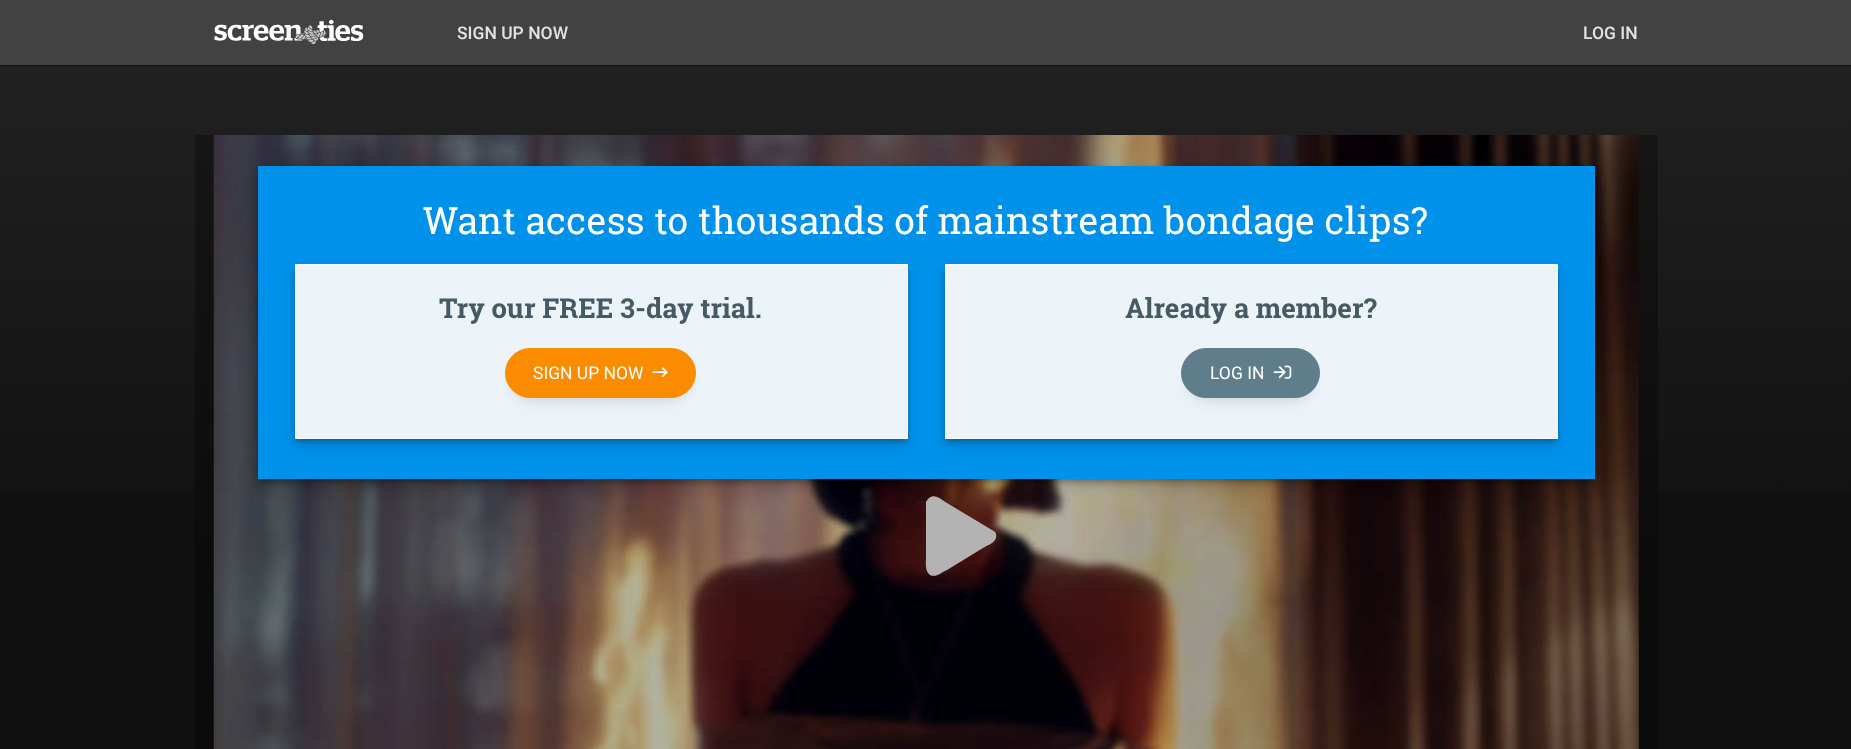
<svg xmlns="http://www.w3.org/2000/svg" width="1851" height="749" viewBox="0 0 1851 749">
  <defs>
    <linearGradient id="g1" gradientUnits="userSpaceOnUse" x1="926" y1="66" x2="926" y2="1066"><stop offset="0" stop-color="#212121"/><stop offset="0.5" stop-color="#101010"/></linearGradient>
    <linearGradient id="g2" gradientUnits="userSpaceOnUse" x1="926" y1="66" x2="926" y2="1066"><stop offset="0" stop-color="#171717"/><stop offset="0.5" stop-color="#0b0b0b"/></linearGradient>
    <clipPath id="clip1"><path d="M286 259H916V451H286ZM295 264H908V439H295Z" clip-rule="evenodd"/></clipPath>
    <clipPath id="clip2"><path d="M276 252H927V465H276ZM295 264H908V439H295Z" clip-rule="evenodd"/></clipPath>
    <clipPath id="clip3"><path d="M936 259H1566V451H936ZM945 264H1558V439H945Z" clip-rule="evenodd"/></clipPath>
    <clipPath id="clip4"><path d="M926 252H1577V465H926ZM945 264H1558V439H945Z" clip-rule="evenodd"/></clipPath>
  </defs>
  <rect width="100%" height="100%" fill="#101010"/>
  <path d="M0 0h1851v65H0z" fill="#424242"/>
  <image x="214" y="19" width="150" height="25" href="img/1.png"/>
  <path d="M0 66h1851v426H0z" fill="url(#g1)"/>
  <path d="M195 135h1463v614H195z" fill="url(#g2)"/>
  <image x="213" y="135" width="1426" height="614" href="img/2.png"/>
  <path d="M259 171h1335v310H259z" fill="#0000004d" filter="blur(3px)"/>
  <path d="M992 530L947 503C942 500 935 493 929 498C928 499 927 500 926 502V558C926 561 925 569 928 573L930 575C936 578 942 572 947 570L983 548C988 545 998 542 996 534C996 532 994 531 992 530Z" fill="#b3b3b3"/>
  <path d="M258 168h1337v312H258z" fill="#00000017" filter="blur(11px)"/>
  <path d="M258 174h1337v312H258z" fill="#0000001c" filter="blur(6px)"/>
  <path d="M258 166h1337v313H258z" fill="#0091ea"/>
  <g clip-path="url(#clip1)">
    <path d="M296 269h610v172H296z" fill="#0000004d" filter="blur(3px)"/>
  </g>
  <g clip-path="url(#clip2)">
    <path d="M295 271h613v175H295z" fill="#0000001c" filter="blur(6px)"/>
  </g>
  <path d="M295.5 264.5h612v174H295.5z" fill="#fafafaf2" stroke="#fff"/>
  <rect x="511" y="361" width="179" height="38" rx="19" fill="#0000000d" filter="blur(4.5px)"/>
  <rect x="515" y="369" width="171" height="30" rx="15" fill="#0000001c" filter="blur(9.5px)"/>
  <rect x="505.5" y="348.5" width="190" height="49" rx="24.5" fill="#fb8c00" stroke="#fb8c00"/>
  <image x="652" y="367" width="16" height="10" href="img/3.png"/>
  <g clip-path="url(#clip3)">
    <path d="M946 269h610v172H946z" fill="#0000004d" filter="blur(3px)"/>
  </g>
  <g clip-path="url(#clip4)">
    <path d="M945 271h613v175H945z" fill="#0000001c" filter="blur(6px)"/>
  </g>
  <path d="M945.5 264.5h612v174H945.5z" fill="#fafafaf2" stroke="#fff"/>
  <rect x="1188" y="361" width="126" height="38" rx="19" fill="#0000000d" filter="blur(4.5px)"/>
  <rect x="1191" y="369" width="119" height="30" rx="15" fill="#0000001c" filter="blur(9.5px)"/>
  <rect x="1181.5" y="348.5" width="138" height="49" rx="24.5" fill="#607d8b" stroke="#607d8b"/>
  <image x="1273" y="365" width="19" height="14" href="img/4.png"/>
  <g font-family="Roboto" font-size="17.5" font-weight="500" fill="#e3e3e3">
    <text x="457" y="39">SIGN UP NOW</text>
    <text x="1583" y="39">LOG IN</text>
  </g>
  <text x="423" y="234" font-family="Roboto Slab" font-size="37.5" fill="#fff">Want access to thousands of mainstream bondage clips?</text>
  <text x="439" y="318" font-family="Roboto Slab" font-size="27.5" font-weight="bold" fill="#455a64">Try our FREE 3-day trial.</text>
  <text x="533" y="379" font-family="Roboto" font-size="17.5" fill="#fff">SIGN UP NOW</text>
  <text x="1125" y="318" font-family="Roboto Slab" font-size="27.5" font-weight="bold" fill="#455a64">Already a member?</text>
  <text x="1210" y="379" font-family="Roboto" font-size="17.5" fill="#fff">LOG IN</text>
</svg>
